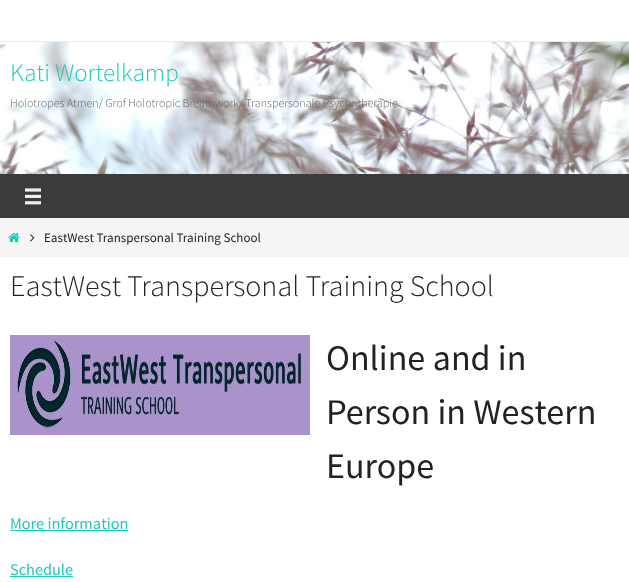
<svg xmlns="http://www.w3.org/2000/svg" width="629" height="582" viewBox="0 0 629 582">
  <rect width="100%" height="100%" fill="#fff"/>
  <path d="M0 41h629v1H0z" fill="#ebebeb"/>
  <image x="0" y="42" width="629" height="132" href="img/1.png"/>
  <path d="M0 174h629v44H0z" fill="#3a3b3d"/>
  <image x="25" y="188" width="16" height="17" href="img/2.png"/>
  <path d="M0 218h629v39H0z" fill="#f5f5f5"/>
  <image x="8" y="232" width="12" height="11" href="img/3.png"/>
  <image x="30" y="234" width="5" height="8" href="img/4.png"/>
  <image x="10" y="335" width="300" height="100" href="img/5.png"/>
  <path d="M10 530h118v1H10z" fill="#1ec8bb"/>
  <path d="M10 576h63v1H10z" fill="#1ec8bb"/>
  <text x="10" y="81" font-family="Source Sans Pro" font-size="25" font-weight="300" fill="#1ec8bb">Kati Wortelkamp</text>
  <text x="10" y="107" font-family="Source Sans Pro" font-size="12" font-weight="300" fill="#666">Holotropes Atmen/ Grof Holotropic Breathwork/ Transpersonale Psychotherapie</text>
  <text x="44" y="242" font-family="Source Sans Pro" font-size="13" fill="#222">EastWest Transpersonal Training School</text>
  <text x="10" y="296" font-family="Source Sans Pro" font-size="30" font-weight="300" fill="#222">EastWest Transpersonal Training School</text>
  <g font-family="Source Sans Pro" font-size="36" fill="#222">
    <text x="326" y="370">Online and in</text>
    <text x="326" y="424">Person in Western</text>
    <text x="326" y="478">Europe</text>
  </g>
  <g font-family="Source Sans Pro" font-size="16.25" fill="#1ec8bb">
    <text x="10" y="529">More information</text>
    <text x="10" y="575">Schedule</text>
  </g>
</svg>
